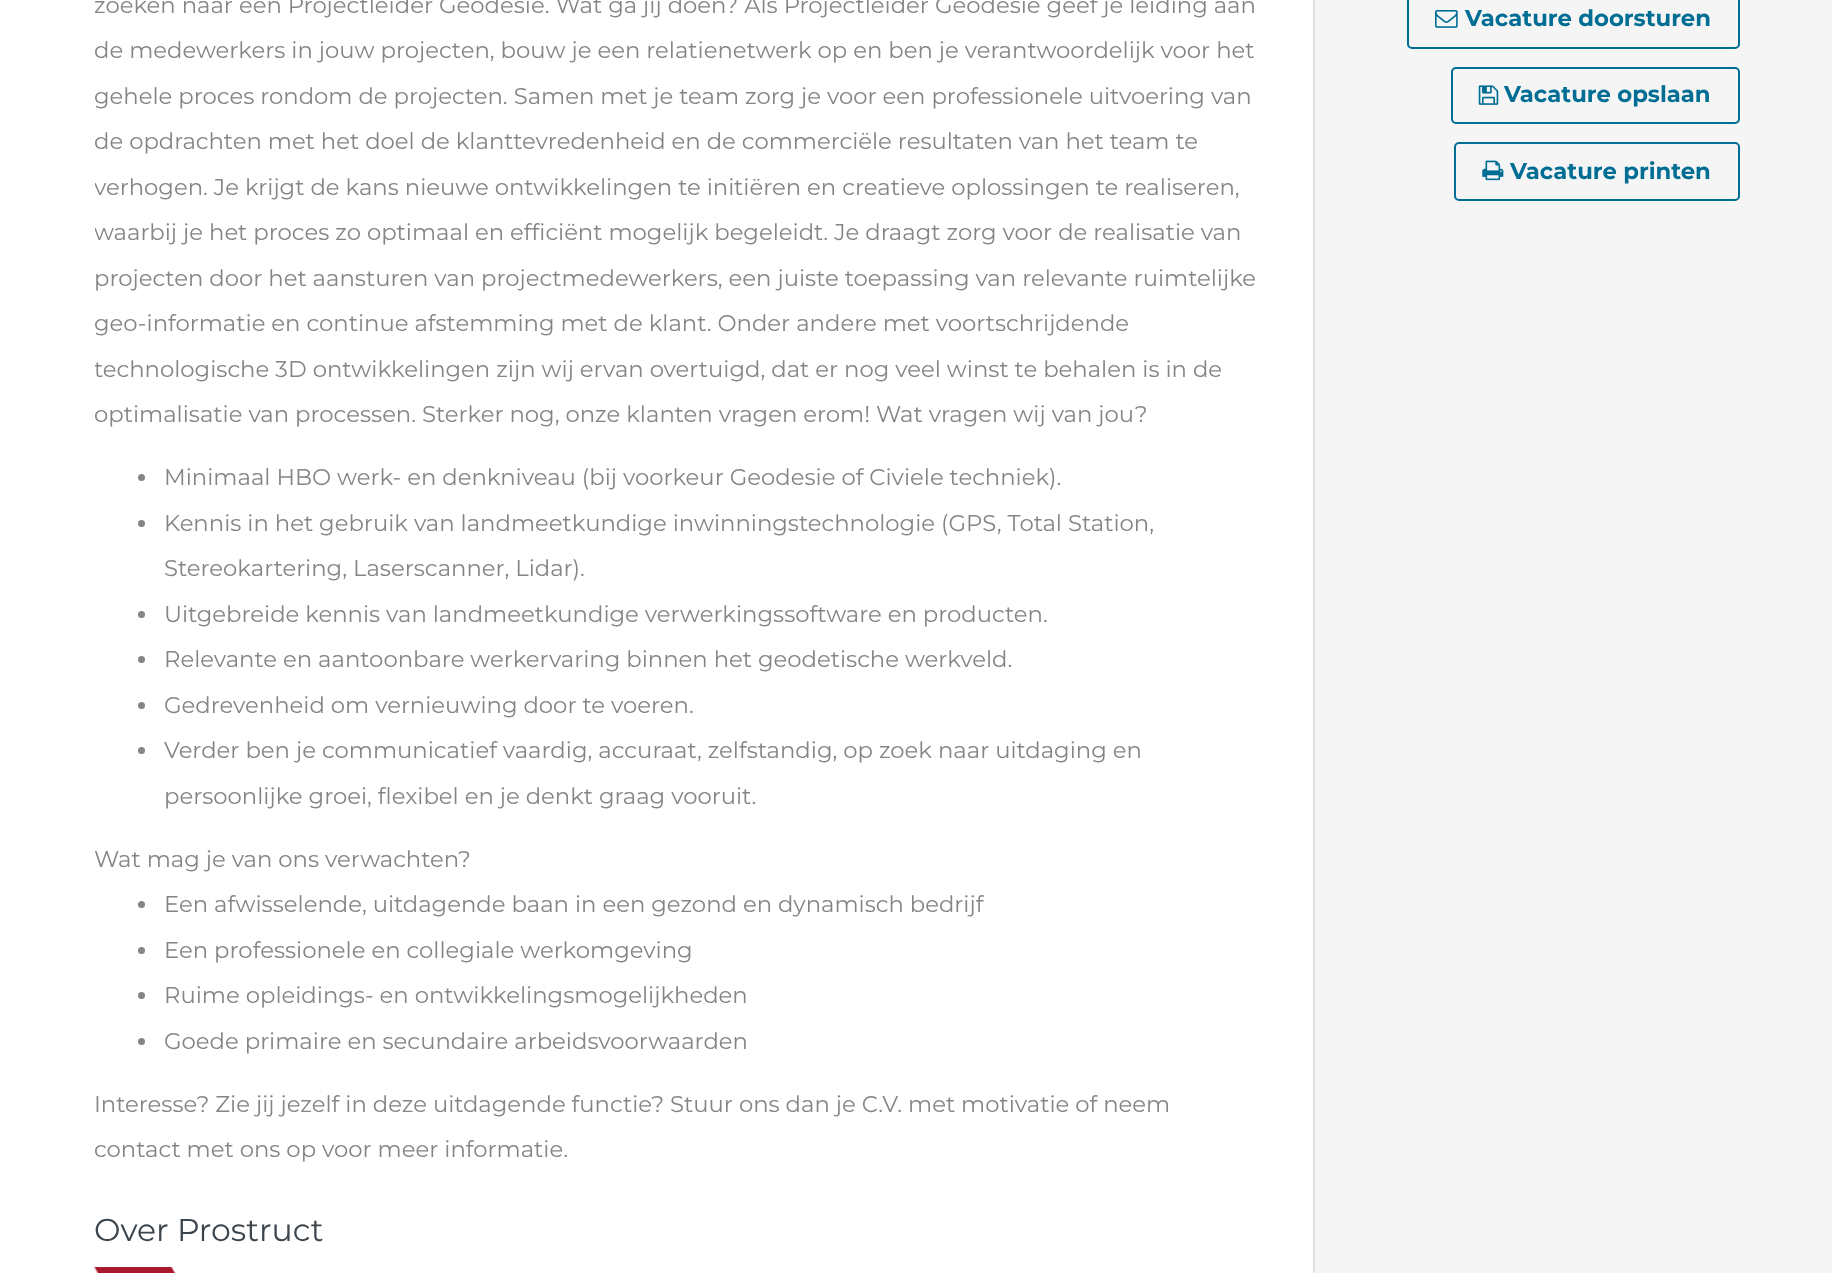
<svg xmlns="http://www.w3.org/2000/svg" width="1832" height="1273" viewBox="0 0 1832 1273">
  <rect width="100%" height="100%" fill="#f5f5f5"/>
  <path d="M95 0h1218v1273H95z" fill="#fff"/>
  <path d="M1313 0h2v1273H1313z" fill="#e1e1e1"/>
  <circle cx="141.5" cy="477.5" r="3.5" fill="#868585"/>
  <circle cx="141.5" cy="523.5" r="3.5" fill="#868585"/>
  <circle cx="141.5" cy="614.5" r="3.5" fill="#868585"/>
  <circle cx="141.5" cy="659.5" r="3.5" fill="#868585"/>
  <circle cx="141.5" cy="705.5" r="3.5" fill="#868585"/>
  <circle cx="141.5" cy="750.5" r="3.5" fill="#868585"/>
  <circle cx="141.5" cy="904.5" r="3.5" fill="#868585"/>
  <circle cx="141.5" cy="950.5" r="3.5" fill="#868585"/>
  <circle cx="141.5" cy="995.5" r="3.5" fill="#868585"/>
  <circle cx="141.5" cy="1041.5" r="3.5" fill="#868585"/>
  <rect x="1408" y="-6" width="331" height="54" rx="4" fill="none" stroke="#006e94" stroke-width="2"/>
  <image x="1435" y="10" width="23" height="18" href="img/2.png"/>
  <rect x="1452" y="68" width="287" height="55" rx="4" fill="none" stroke="#006e94" stroke-width="2"/>
  <image x="1478" y="85" width="21" height="20" href="img/3.png"/>
  <rect x="1455" y="143" width="284" height="57" rx="4" fill="none" stroke="#006e94" stroke-width="2"/>
  <image x="1482" y="160" width="22" height="21" href="img/4.png"/>
  <g font-family="Montserrat" font-size="22.75" fill="#868585">
    <text x="94" y="13">zoeken naar een Projectleider Geodesie. Wat ga jij doen? Als Projectleider Geodesie geef je leiding aan</text>
    <text x="94" y="58">de medewerkers in jouw projecten, bouw je een relatienetwerk op en ben je verantwoordelijk voor het</text>
    <text x="94" y="104">gehele proces rondom de projecten. Samen met je team zorg je voor een professionele uitvoering van</text>
    <text x="94" y="149">de opdrachten met het doel de klanttevredenheid en de commerciële resultaten van het team te</text>
    <text x="94" y="195">verhogen. Je krijgt de kans nieuwe ontwikkelingen te initiëren en creatieve oplossingen te realiseren,</text>
    <text x="94" y="240">waarbij je het proces zo optimaal en efficiënt mogelijk begeleidt. Je draagt zorg voor de realisatie van</text>
    <text x="94" y="286">projecten door het aansturen van projectmedewerkers, een juiste toepassing van relevante ruimtelijke</text>
    <text x="94" y="331">geo-informatie en continue afstemming met de klant. Onder andere met voortschrijdende</text>
    <text x="94" y="377">technologische 3D ontwikkelingen zijn wij ervan overtuigd, dat er nog veel winst te behalen is in de</text>
    <text x="94" y="422">optimalisatie van processen. Sterker nog, onze klanten vragen erom! Wat vragen wij van jou?</text>
    <text x="164" y="485">Minimaal HBO werk- en denkniveau (bij voorkeur Geodesie of Civiele techniek).</text>
    <text x="164" y="531">Kennis in het gebruik van landmeetkundige inwinningstechnologie (GPS, Total Station,</text>
    <text x="164" y="576">Stereokartering, Laserscanner, Lidar).</text>
    <text x="164" y="622">Uitgebreide kennis van landmeetkundige verwerkingssoftware en producten.</text>
    <text x="164" y="667">Relevante en aantoonbare werkervaring binnen het geodetische werkveld.</text>
    <text x="164" y="713">Gedrevenheid om vernieuwing door te voeren.</text>
    <text x="164" y="758">Verder ben je communicatief vaardig, accuraat, zelfstandig, op zoek naar uitdaging en</text>
    <text x="164" y="804">persoonlijke groei, flexibel en je denkt graag vooruit.</text>
    <text x="94" y="867">Wat mag je van ons verwachten?</text>
    <text x="164" y="912">Een afwisselende, uitdagende baan in een gezond en dynamisch bedrijf</text>
    <text x="164" y="958">Een professionele en collegiale werkomgeving</text>
    <text x="164" y="1003">Ruime opleidings- en ontwikkelingsmogelijkheden</text>
    <text x="164" y="1049">Goede primaire en secundaire arbeidsvoorwaarden</text>
    <text x="94" y="1112">Interesse? Zie jij jezelf in deze uitdagende functie? Stuur ons dan je C.V. met motivatie of neem</text>
    <text x="94" y="1157">contact met ons op voor meer informatie.</text>
  </g>
  <path d="M0 0h95v1273H0z" fill="#fff"/>
  <text x="94" y="1241" font-family="Montserrat" font-size="31.5" fill="#3d454c">Over Prostruct</text>
  <image x="93" y="1267" width="83" height="6" href="img/1.png"/>
  <g font-family="Montserrat" font-size="22.75" font-weight="bold" fill="#006e94">
    <text x="1465" y="26">Vacature doorsturen</text>
    <text x="1504" y="102">Vacature opslaan</text>
    <text x="1510" y="179">Vacature printen</text>
  </g>
</svg>
